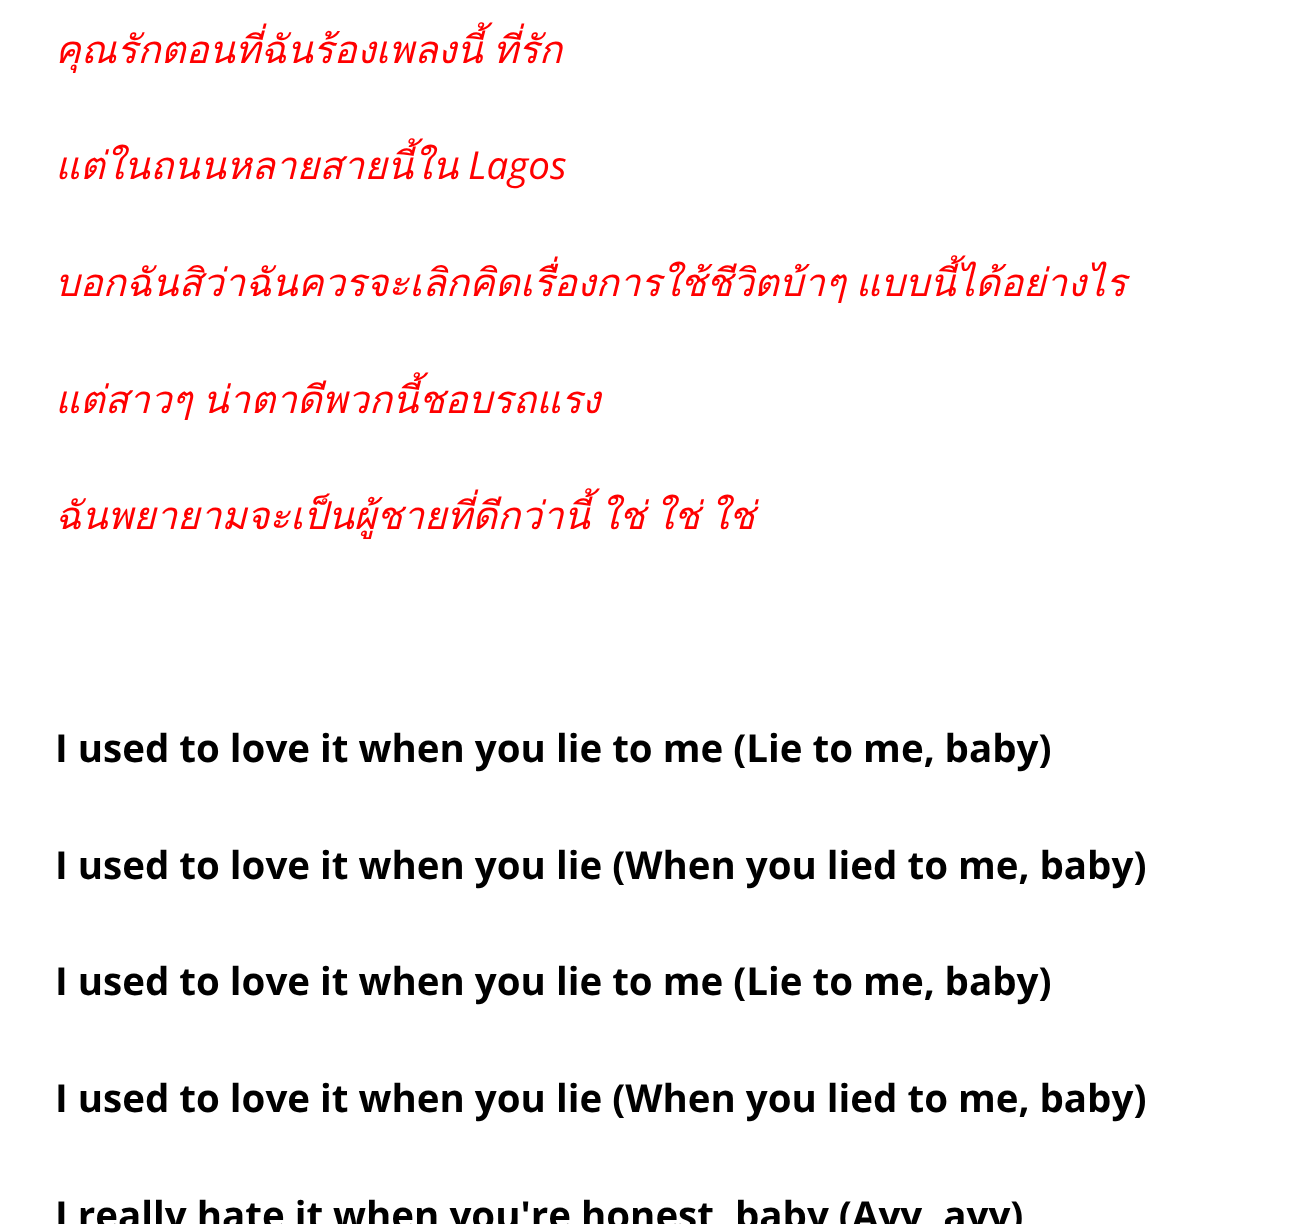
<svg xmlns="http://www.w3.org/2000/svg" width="1289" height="1224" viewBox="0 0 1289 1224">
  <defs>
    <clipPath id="clip1"><path d="M55 0h1180v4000H55z"/></clipPath>
  </defs>
  <rect width="100%" height="100%" fill="#fff"/>
  <g clip-path="url(#clip1)">
    <text x="55" y="63" word-spacing="-3" font-family="Loma" font-size="38.5" font-style="italic" fill="#f00">คุณรักตอนที่ฉันร้องเพลงนี้ ที่รัก</text>
  </g>
  <text x="55" y="179" font-family="Loma" font-size="38.5" font-style="italic" fill="#f00">แต่ในถนนหลายสายนี้ใน</text>
  <text x="468" y="179" font-family="Open Sans" font-size="38.5" font-style="italic" fill="#f00">Lagos</text>
  <g font-family="Loma" font-size="38.5" font-style="italic" fill="#f00">
    <text x="55" y="296" word-spacing="-3">บอกฉันสิว่าฉันควรจะเลิกคิดเรื่องการใช้ชีวิตบ้าๆ แบบนี้ได้อย่างไร</text>
    <text x="55" y="413" word-spacing="-3">แต่สาวๆ น่าตาดีพวกนี้ชอบรถแรง</text>
  </g>
  <g clip-path="url(#clip1)">
    <text x="55" y="529" word-spacing="-3" font-family="Loma" font-size="38.5" font-style="italic" fill="#f00">ฉันพยายามจะเป็นผู้ชายที่ดีกว่านี้ ใช่ ใช่ ใช่</text>
  </g>
  <g font-family="Open Sans" font-size="38.5" font-weight="bold" fill="#000">
    <text x="55" y="762">I used to love it when you lie to me (Lie to me, baby)</text>
    <text x="55" y="879">I used to love it when you lie (When you lied to me, baby)</text>
    <text x="55" y="995">I used to love it when you lie to me (Lie to me, baby)</text>
    <text x="55" y="1112">I used to love it when you lie (When you lied to me, baby)</text>
    <text x="55" y="1229">I really hate it when you're honest, baby (Ayy, ayy)</text>
  </g>
</svg>
